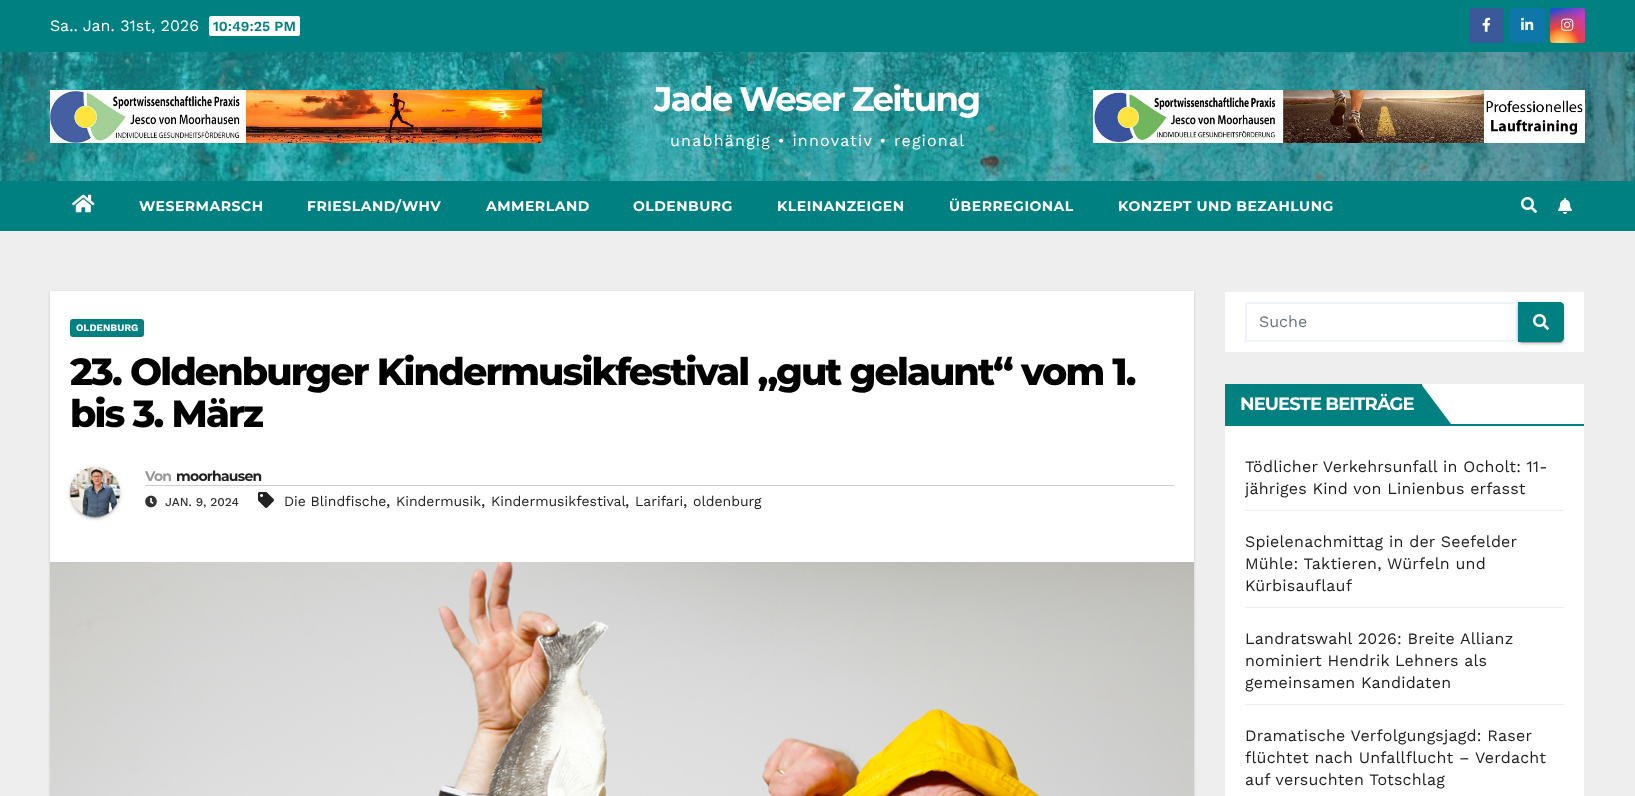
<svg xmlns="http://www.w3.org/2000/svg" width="1635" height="796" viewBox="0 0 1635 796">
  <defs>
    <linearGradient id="g1" gradientUnits="userSpaceOnUse" x1="1550" y1="8" x2="1585" y2="43"><stop offset="0.12" stop-color="#234bd7"/><stop offset="0.58" stop-color="#c33cbe"/></linearGradient>
    <radialGradient id="g2" gradientUnits="userSpaceOnUse" cx="1561" cy="45" r="44"><stop offset="0" stop-color="#ffe17d"/><stop offset="0.1" stop-color="#ffcd69"/><stop offset="0.28" stop-color="#fa9137"/><stop offset="0.42" stop-color="#eb4141"/><stop offset="0.82" stop-color="#eb4141" stop-opacity="0"/></radialGradient>
    <clipPath id="clip1"><path d="M1245 446h319v64H1245z"/></clipPath>
  </defs>
  <rect width="100%" height="100%" fill="#eee"/>
  <path d="M0 0h1635v52H0z" fill="#008080"/>
  <rect x="209" y="16" width="91" height="20" rx="2" fill="#fff"/>
  <rect x="1469" y="8" width="35" height="35" rx="3" fill="#3b5998"/>
  <image x="1482" y="17" width="9" height="15" href="img/1.png"/>
  <rect x="1510" y="8" width="35" height="35" rx="3" fill="#0e76a8"/>
  <image x="1521" y="17" width="13" height="13" href="img/2.png"/>
  <rect x="1550" y="8" width="35" height="35" rx="3" fill="url(#g1)"/>
  <rect x="1550" y="8" width="35" height="35" rx="3" fill="url(#g2)"/>
  <image x="1561" y="18" width="13" height="13" href="img/3.png"/>
  <image x="0" y="52" width="1635" height="129" href="img/4.png"/>
  <image x="50" y="90" width="492" height="53" href="img/5.png"/>
  <image x="1093" y="90" width="492" height="53" href="img/6.png"/>
  <path d="M0 181h1635v50H0z" fill="#008080"/>
  <image x="72" y="194" width="23" height="19" href="img/7.png"/>
  <image x="1521" y="197" width="16" height="16" href="img/8.png"/>
  <image x="1558" y="198" width="14" height="16" href="img/9.png"/>
  <path d="M50 292h1144v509H50z" fill="#00000026" filter="blur(1.5px)"/>
  <path d="M50 291h1144v271H50z" fill="#fff"/>
  <rect x="70" y="319" width="74" height="18" rx="3" fill="#008080"/>
  <rect x="70" y="468" width="50" height="50" rx="25" fill="#0000001f" filter="blur(2.5px)"/>
  <rect x="72" y="472" width="46" height="46" rx="23" fill="#00000033" filter="blur(0.5px)"/>
  <rect x="70" y="469" width="50" height="50" rx="25" fill="#00000024" filter="blur(1px)"/>
  <image x="70" y="467" width="50" height="50" href="img/10.png"/>
  <path d="M145 485h1029v1H145z" fill="#ccc"/>
  <image x="145" y="495" width="12" height="13" href="img/11.png"/>
  <image x="258" y="492" width="16" height="16" href="img/12.png"/>
  <image x="50" y="562" width="1144" height="234" href="img/13.png"/>
  <path d="M1225 292h359v60H1225z" fill="#fff"/>
  <path d="M1246 303h271v38H1246z" fill="none" stroke="#eef3fb" stroke-width="2"/>
  <rect x="1518" y="303" width="46" height="40" rx="4" fill="#0000001f" filter="blur(2.5px)"/>
  <rect x="1520" y="307" width="42" height="36" rx="2" fill="#00000033" filter="blur(0.5px)"/>
  <rect x="1518" y="304" width="46" height="40" rx="4" fill="#00000024" filter="blur(1px)"/>
  <path d="M1518 302H1560C1562 302 1564 304 1564 306V338C1564 340 1562 342 1560 342H1518Z" fill="#008080"/>
  <image x="1533" y="314" width="16" height="16" href="img/8.png"/>
  <path d="M1225 384h359v412H1225z" fill="#fff"/>
  <path d="M1225 424h359v2H1225z" fill="#008080"/>
  <path d="M1225 384h197v40H1225z" fill="#008080"/>
  <path d="M1421 424V384L1451 424Z" fill="#008080"/>
  <path d="M1245 510h319v1H1245z" fill="#eee"/>
  <path d="M1245 607h319v1H1245z" fill="#eee"/>
  <path d="M1245 704h319v1H1245z" fill="#eee"/>
  <text x="50" y="31" font-family="Work Sans" font-size="16" fill="#fff">Sa.. Jan. 31st, 2026</text>
  <text x="213" y="31" font-family="Work Sans" font-size="14" font-weight="600" fill="#008080">10:49:25 PM</text>
  <text x="654" y="111" font-family="Montserrat" font-size="34" font-weight="bold" letter-spacing="-1.75" fill="#fff">Jade Weser Zeitung</text>
  <text x="670" y="146" font-family="Work Sans" font-size="16" letter-spacing="1.2" fill="#fff">unabhängig • innovativ • regional</text>
  <g font-family="Montserrat" font-size="14" font-weight="bold" letter-spacing="0.5" fill="#fff">
    <text x="139" y="211">WESERMARSCH</text>
    <text x="307" y="211">FRIESLAND/WHV</text>
    <text x="486" y="211">AMMERLAND</text>
    <text x="633" y="211">OLDENBURG</text>
    <text x="777" y="211">KLEINANZEIGEN</text>
    <text x="949" y="211">ÜBERREGIONAL</text>
    <text x="1118" y="211">KONZEPT UND BEZAHLUNG</text>
  </g>
  <text x="76" y="331" font-family="Work Sans" font-size="10" font-weight="bold" fill="#fff">OLDENBURG</text>
  <g font-family="Montserrat" font-size="38" font-weight="800" letter-spacing="-1.9" fill="#000">
    <text x="70" y="385">23. Oldenburger Kindermusikfestival „gut gelaunt“ vom 1.</text>
    <text x="70" y="427">bis 3. März</text>
  </g>
  <text x="145" y="481" font-family="Montserrat" font-size="14" font-weight="bold" letter-spacing="-0.75" fill="#999">Von</text>
  <text x="176" y="481" font-family="Montserrat" font-size="14" font-weight="bold" letter-spacing="-0.75" fill="#212121">moorhausen</text>
  <text x="165" y="506" font-family="Work Sans" font-size="12" font-weight="500" fill="#333">JAN. 9, 2024</text>
  <text x="284" y="506" font-family="Work Sans" font-size="14" fill="#212121">Die Blindfische</text>
  <text x="386" y="506" font-family="Work Sans" font-size="16" fill="#212121">,</text>
  <text x="396" y="506" font-family="Work Sans" font-size="14" fill="#212121">Kindermusik</text>
  <text x="481" y="506" font-family="Work Sans" font-size="16" fill="#212121">,</text>
  <text x="491" y="506" font-family="Work Sans" font-size="14" fill="#212121">Kindermusikfestival</text>
  <text x="625" y="506" font-family="Work Sans" font-size="16" fill="#212121">,</text>
  <text x="635" y="506" font-family="Work Sans" font-size="14" fill="#212121">Larifari</text>
  <text x="683" y="506" font-family="Work Sans" font-size="16" fill="#212121">,</text>
  <text x="693" y="506" font-family="Work Sans" font-size="14" fill="#212121">oldenburg</text>
  <text x="1259" y="327" font-family="Work Sans" font-size="16" fill="#6c757d">Suche</text>
  <text x="1240" y="410" font-family="Montserrat" font-size="18" font-weight="bold" letter-spacing="-0.9" fill="#fff">NEUESTE BEITRÄGE</text>
  <text x="1245" y="472" font-family="Work Sans" font-size="16" letter-spacing="0.2" fill="#212121">Tödlicher Verkehrsunfall in Ocholt: 11-</text>
  <g clip-path="url(#clip1)">
    <text x="1245" y="494" font-family="Work Sans" font-size="16" letter-spacing="0.2" fill="#212121">jähriges Kind von Linienbus erfasst</text>
  </g>
  <g font-family="Work Sans" font-size="16" letter-spacing="0.2" fill="#212121">
    <text x="1245" y="547">Spielenachmittag in der Seefelder</text>
    <text x="1245" y="569">Mühle: Taktieren, Würfeln und</text>
    <text x="1245" y="591">Kürbisauflauf</text>
    <text x="1245" y="644">Landratswahl 2026: Breite Allianz</text>
    <text x="1245" y="666">nominiert Hendrik Lehners als</text>
    <text x="1245" y="688">gemeinsamen Kandidaten</text>
    <text x="1245" y="741">Dramatische Verfolgungsjagd: Raser</text>
    <text x="1245" y="763">flüchtet nach Unfallflucht – Verdacht</text>
    <text x="1245" y="785">auf versuchten Totschlag</text>
  </g>
</svg>
